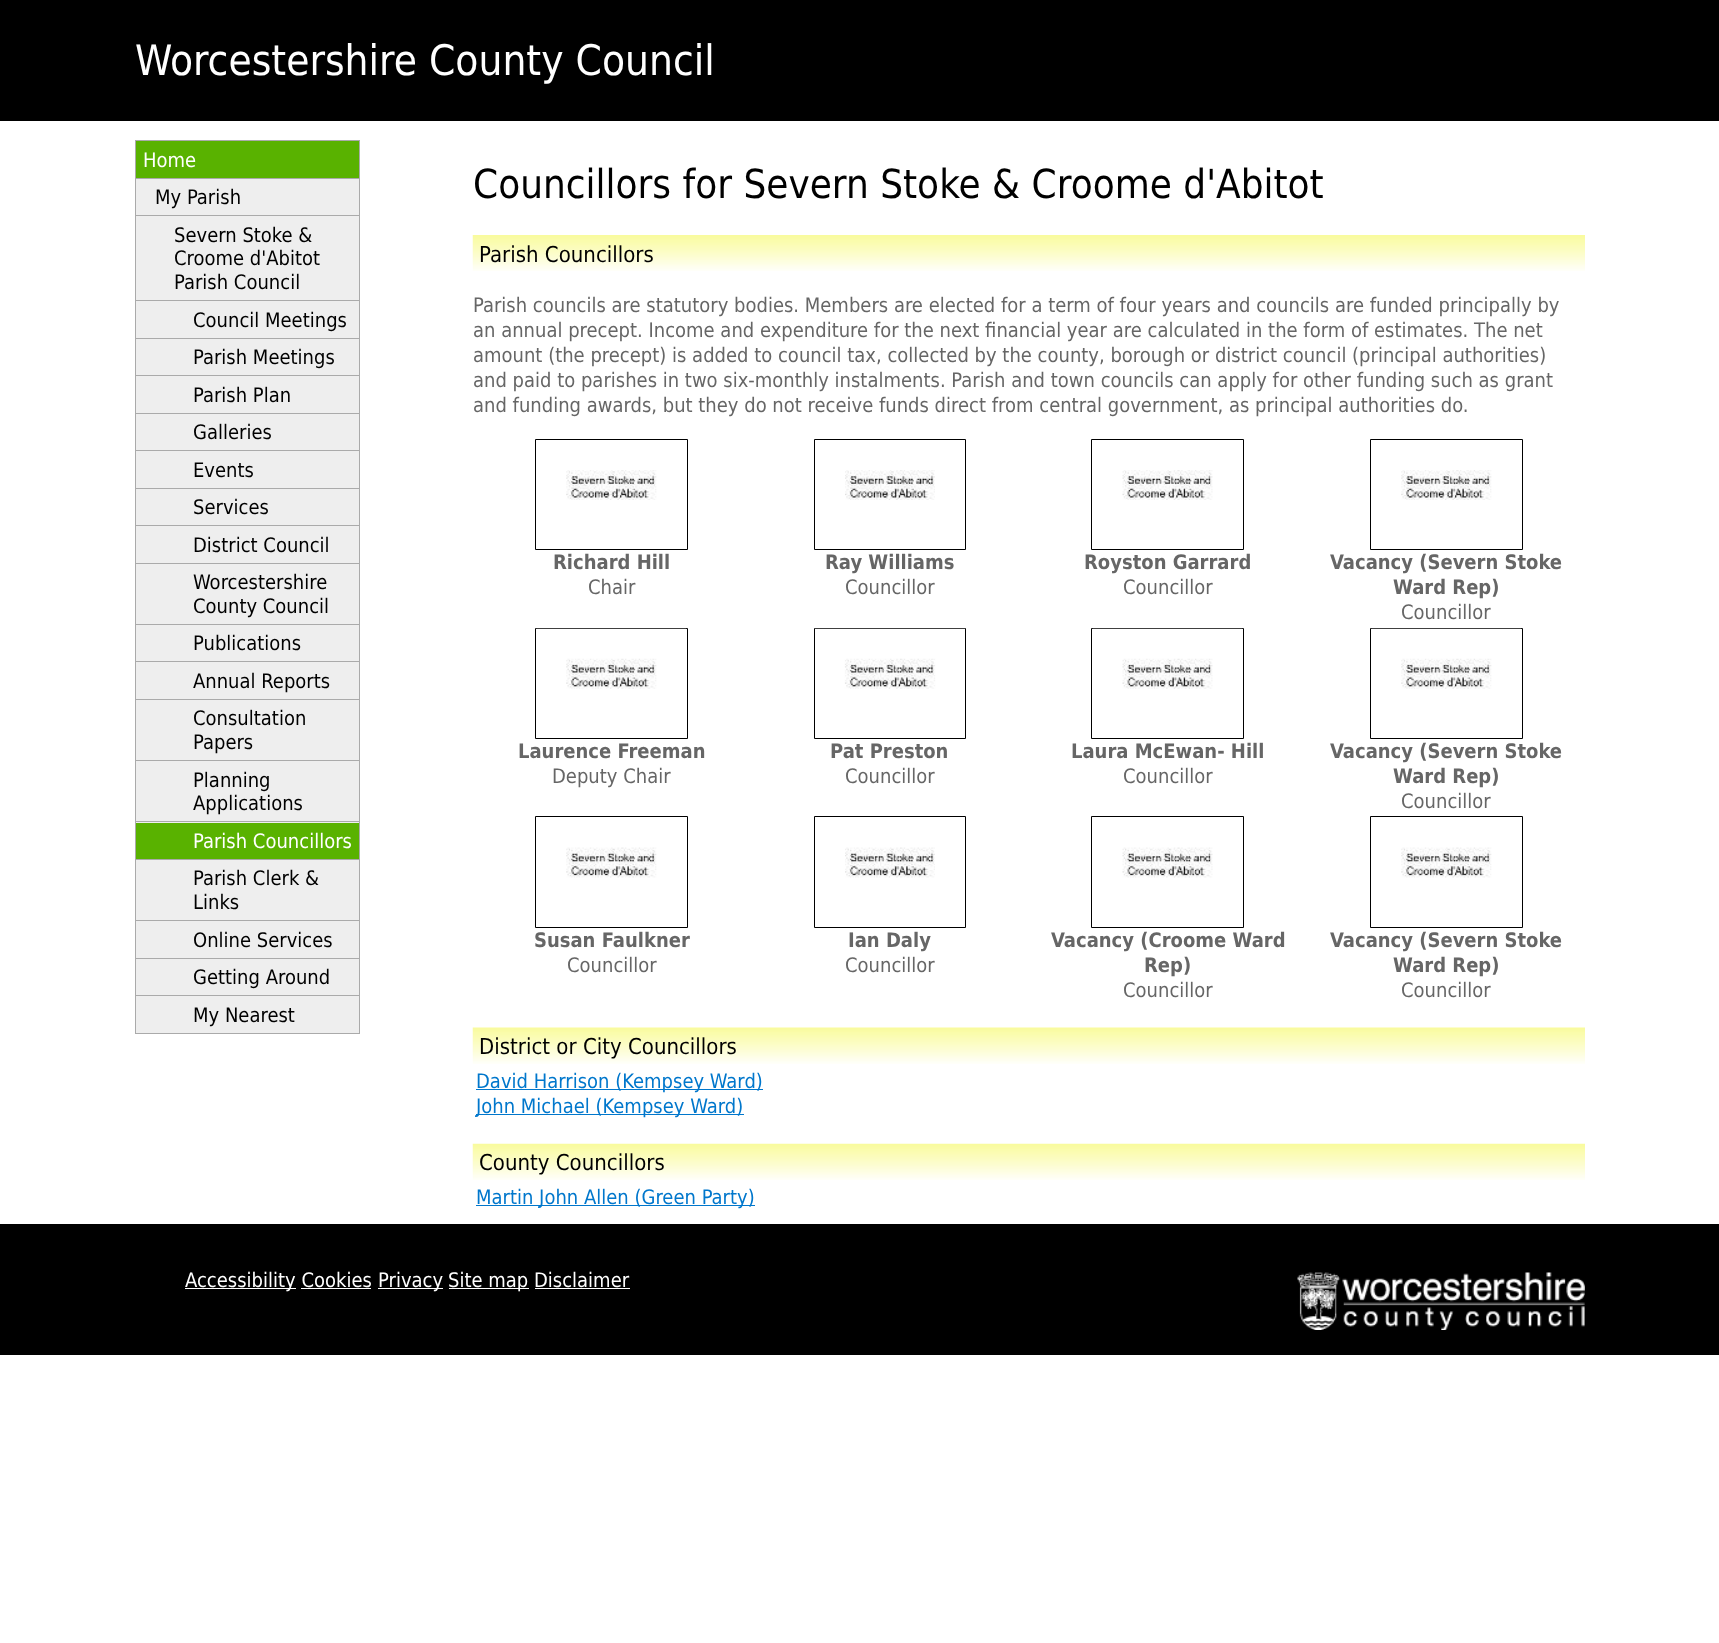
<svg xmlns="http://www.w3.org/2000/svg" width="1719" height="1643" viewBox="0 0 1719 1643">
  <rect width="100%" height="100%" fill="#fff"/>
  <path d="M0 0h1719v121H0z" fill="#000"/>
  <path d="M135 140h225v1H135z" fill="#aaa"/>
  <path d="M359 140h1v894H359z" fill="#aaa"/>
  <path d="M135 140h1v894H135z" fill="#aaa"/>
  <path d="M136 141h223v37H136z" fill="#59b200"/>
  <path d="M136 178h223v1H136z" fill="#aaa"/>
  <path d="M136 179h223v36H136z" fill="#eee"/>
  <path d="M136 215h223v1H136z" fill="#aaa"/>
  <path d="M136 216h223v84H136z" fill="#eee"/>
  <path d="M136 300h223v1H136z" fill="#aaa"/>
  <path d="M136 301h223v37H136z" fill="#eee"/>
  <path d="M136 338h223v1H136z" fill="#aaa"/>
  <path d="M136 339h223v36H136z" fill="#eee"/>
  <path d="M136 375h223v1H136z" fill="#aaa"/>
  <path d="M136 376h223v37H136z" fill="#eee"/>
  <path d="M136 413h223v1H136z" fill="#aaa"/>
  <path d="M136 414h223v36H136z" fill="#eee"/>
  <path d="M136 450h223v1H136z" fill="#aaa"/>
  <path d="M136 451h223v37H136z" fill="#eee"/>
  <path d="M136 488h223v1H136z" fill="#aaa"/>
  <path d="M136 489h223v36H136z" fill="#eee"/>
  <path d="M136 525h223v1H136z" fill="#aaa"/>
  <path d="M136 526h223v37H136z" fill="#eee"/>
  <path d="M136 563h223v1H136z" fill="#aaa"/>
  <path d="M136 564h223v60H136z" fill="#eee"/>
  <path d="M136 624h223v1H136z" fill="#aaa"/>
  <path d="M136 625h223v74H136z" fill="#eee"/>
  <path d="M136 661h223v1H136z" fill="#aaa"/>
  <path d="M136 699h223v1H136z" fill="#aaa"/>
  <path d="M136 700h223v60H136z" fill="#eee"/>
  <path d="M136 760h223v1H136z" fill="#aaa"/>
  <path d="M136 761h223v62H136z" fill="#eee"/>
  <path d="M136 821h223v1H136z" fill="#aaa"/>
  <path d="M136 823h223v36H136z" fill="#59b200"/>
  <path d="M136 859h223v1H136z" fill="#aaa"/>
  <path d="M136 860h223v60H136z" fill="#eee"/>
  <path d="M136 920h223v1H136z" fill="#aaa"/>
  <path d="M136 921h223v37H136z" fill="#eee"/>
  <path d="M136 958h223v1H136z" fill="#aaa"/>
  <path d="M136 959h223v36H136z" fill="#eee"/>
  <path d="M136 995h223v1H136z" fill="#aaa"/>
  <path d="M136 996h223v37H136z" fill="#eee"/>
  <path d="M136 1033h223v1H136z" fill="#aaa"/>
  <image x="472" y="235" width="1113" height="36" href="img/1.png"/>
  <path d="M535.5 439.5h152v110H535.5z" fill="none" stroke="#000"/>
  <image x="566" y="470" width="91" height="30" href="img/2.png"/>
  <path d="M814.5 439.5h151v110H814.5z" fill="none" stroke="#000"/>
  <image x="845" y="470" width="90" height="30" href="img/3.png"/>
  <path d="M1091.5 439.5h152v110H1091.5z" fill="none" stroke="#000"/>
  <image x="1122" y="470" width="91" height="30" href="img/4.png"/>
  <path d="M1370.5 439.5h152v110H1370.5z" fill="none" stroke="#000"/>
  <image x="1401" y="470" width="91" height="30" href="img/2.png"/>
  <path d="M535.5 628.5h152v110H535.5z" fill="none" stroke="#000"/>
  <image x="536" y="628" width="151" height="61" href="img/5.png"/>
  <path d="M814.5 628.5h151v110H814.5z" fill="none" stroke="#000"/>
  <image x="815" y="628" width="150" height="61" href="img/6.png"/>
  <path d="M1091.5 628.5h152v110H1091.5z" fill="none" stroke="#000"/>
  <image x="1092" y="628" width="151" height="61" href="img/7.png"/>
  <path d="M1370.5 628.5h152v110H1370.5z" fill="none" stroke="#000"/>
  <image x="1371" y="628" width="151" height="61" href="img/5.png"/>
  <path d="M535.5 816.5h152v111H535.5z" fill="none" stroke="#000"/>
  <image x="566" y="847" width="91" height="31" href="img/8.png"/>
  <path d="M814.5 816.5h151v111H814.5z" fill="none" stroke="#000"/>
  <image x="845" y="847" width="90" height="31" href="img/9.png"/>
  <path d="M1091.5 816.5h152v111H1091.5z" fill="none" stroke="#000"/>
  <image x="1122" y="847" width="91" height="31" href="img/10.png"/>
  <path d="M1370.5 816.5h152v111H1370.5z" fill="none" stroke="#000"/>
  <image x="1401" y="847" width="91" height="31" href="img/8.png"/>
  <image x="472" y="1027" width="1113" height="37" href="img/11.png"/>
  <path d="M476 1089h287v1H476z" fill="#07c"/>
  <path d="M476 1114h268v1H476z" fill="#07c"/>
  <image x="472" y="1143" width="1113" height="37" href="img/12.png"/>
  <path d="M476 1205h279v1H476z" fill="#07c"/>
  <path d="M0 1224h1719v131H0z" fill="#000"/>
  <image x="1297" y="1272" width="288" height="58" href="img/13.png"/>
  <path d="M185 1288h111v1H185z" fill="#fff"/>
  <path d="M378 1288h65v1H378z" fill="#fff"/>
  <path d="M449 1288h80v1H449z" fill="#fff"/>
  <path d="M301 1288h70v1H301z" fill="#fff"/>
  <path d="M535 1288h95v1H535z" fill="#fff"/>
  <text x="135" y="75" font-family="DejaVu Sans" font-size="42" fill="#fff">Worcestershire County Council</text>
  <text x="143" y="167" font-family="DejaVu Sans" font-size="20" fill="#fff">Home</text>
  <g font-family="DejaVu Sans" font-size="20" fill="#000">
    <text x="155" y="204">My Parish</text>
    <text x="174" y="242">Severn Stoke &amp;</text>
    <text x="174" y="265">Croome d'Abitot</text>
    <text x="174" y="289">Parish Council</text>
    <text x="193" y="327">Council Meetings</text>
    <text x="193" y="364">Parish Meetings</text>
    <text x="193" y="402">Parish Plan</text>
    <text x="193" y="439">Galleries</text>
    <text x="193" y="477">Events</text>
    <text x="193" y="514">Services</text>
    <text x="193" y="552">District Council</text>
    <text x="193" y="589">Worcestershire</text>
    <text x="193" y="613">County Council</text>
    <text x="193" y="650">Publications</text>
    <text x="193" y="688">Annual Reports</text>
    <text x="193" y="725">Consultation</text>
    <text x="193" y="749">Papers</text>
    <text x="193" y="787">Planning</text>
    <text x="193" y="810">Applications</text>
  </g>
  <text x="193" y="848" font-family="DejaVu Sans" font-size="20" fill="#fff">Parish Councillors</text>
  <g font-family="DejaVu Sans" font-size="20" fill="#000">
    <text x="193" y="885">Parish Clerk &amp;</text>
    <text x="193" y="909">Links</text>
    <text x="193" y="947">Online Services</text>
    <text x="193" y="984">Getting Around</text>
    <text x="193" y="1022">My Nearest</text>
  </g>
  <text x="473" y="198" font-family="DejaVu Sans" font-size="40" fill="#000">Councillors for Severn Stoke &amp; Croome d'Abitot</text>
  <text x="479" y="262" font-family="DejaVu Sans" font-size="22" fill="#000">Parish Councillors</text>
  <g font-family="DejaVu Sans" font-size="20" fill="#666">
    <text x="473" y="312">Parish councils are statutory bodies. Members are elected for a term of four years and councils are funded principally by</text>
    <text x="473" y="337">an annual precept. Income and expenditure for the next financial year are calculated in the form of estimates. The net</text>
    <text x="473" y="362">amount (the precept) is added to council tax, collected by the county, borough or district council (principal authorities)</text>
    <text x="473" y="387">and paid to parishes in two six-monthly instalments. Parish and town councils can apply for other funding such as grant</text>
    <text x="473" y="412">and funding awards, but they do not receive funds direct from central government, as principal authorities do.</text>
  </g>
  <text x="553" y="569" font-family="DejaVu Sans" font-size="20" font-weight="bold" fill="#666">Richard Hill</text>
  <text x="588" y="594" font-family="DejaVu Sans" font-size="20" fill="#666">Chair</text>
  <text x="825" y="569" font-family="DejaVu Sans" font-size="20" font-weight="bold" fill="#666">Ray Williams</text>
  <text x="845" y="594" font-family="DejaVu Sans" font-size="20" fill="#666">Councillor</text>
  <text x="1084" y="569" font-family="DejaVu Sans" font-size="20" font-weight="bold" fill="#666">Royston Garrard</text>
  <text x="1123" y="594" font-family="DejaVu Sans" font-size="20" fill="#666">Councillor</text>
  <g font-family="DejaVu Sans" font-size="20" font-weight="bold" fill="#666">
    <text x="1330" y="569">Vacancy (Severn Stoke</text>
    <text x="1393" y="594">Ward Rep)</text>
  </g>
  <text x="1401" y="619" font-family="DejaVu Sans" font-size="20" fill="#666">Councillor</text>
  <text x="518" y="758" font-family="DejaVu Sans" font-size="20" font-weight="bold" fill="#666">Laurence Freeman</text>
  <text x="552" y="783" font-family="DejaVu Sans" font-size="20" fill="#666">Deputy Chair</text>
  <text x="830" y="758" font-family="DejaVu Sans" font-size="20" font-weight="bold" fill="#666">Pat Preston</text>
  <text x="845" y="783" font-family="DejaVu Sans" font-size="20" fill="#666">Councillor</text>
  <text x="1071" y="758" font-family="DejaVu Sans" font-size="20" font-weight="bold" fill="#666">Laura McEwan- Hill</text>
  <text x="1123" y="783" font-family="DejaVu Sans" font-size="20" fill="#666">Councillor</text>
  <g font-family="DejaVu Sans" font-size="20" font-weight="bold" fill="#666">
    <text x="1330" y="758">Vacancy (Severn Stoke</text>
    <text x="1393" y="783">Ward Rep)</text>
  </g>
  <text x="1401" y="808" font-family="DejaVu Sans" font-size="20" fill="#666">Councillor</text>
  <text x="534" y="947" font-family="DejaVu Sans" font-size="20" font-weight="bold" fill="#666">Susan Faulkner</text>
  <text x="567" y="972" font-family="DejaVu Sans" font-size="20" fill="#666">Councillor</text>
  <text x="848" y="947" font-family="DejaVu Sans" font-size="20" font-weight="bold" fill="#666">Ian Daly</text>
  <text x="845" y="972" font-family="DejaVu Sans" font-size="20" fill="#666">Councillor</text>
  <g font-family="DejaVu Sans" font-size="20" font-weight="bold" fill="#666">
    <text x="1051" y="947">Vacancy (Croome Ward</text>
    <text x="1144" y="972">Rep)</text>
  </g>
  <text x="1123" y="997" font-family="DejaVu Sans" font-size="20" fill="#666">Councillor</text>
  <g font-family="DejaVu Sans" font-size="20" font-weight="bold" fill="#666">
    <text x="1330" y="947">Vacancy (Severn Stoke</text>
    <text x="1393" y="972">Ward Rep)</text>
  </g>
  <text x="1401" y="997" font-family="DejaVu Sans" font-size="20" fill="#666">Councillor</text>
  <text x="479" y="1054" font-family="DejaVu Sans" font-size="22" fill="#000">District or City Councillors</text>
  <g font-family="DejaVu Sans" font-size="20" fill="#07c">
    <text x="476" y="1088">David Harrison (Kempsey Ward)</text>
    <text x="476" y="1113">John Michael (Kempsey Ward)</text>
  </g>
  <text x="479" y="1170" font-family="DejaVu Sans" font-size="22" fill="#000">County Councillors</text>
  <text x="476" y="1204" font-family="DejaVu Sans" font-size="20" fill="#07c">Martin John Allen (Green Party)</text>
  <g font-family="DejaVu Sans" font-size="20" fill="#fff">
    <text x="185" y="1287">Accessibility Cookies</text>
    <text x="378" y="1287">Privacy</text>
    <text x="448" y="1287">Site map Disclaimer</text>
  </g>
</svg>
